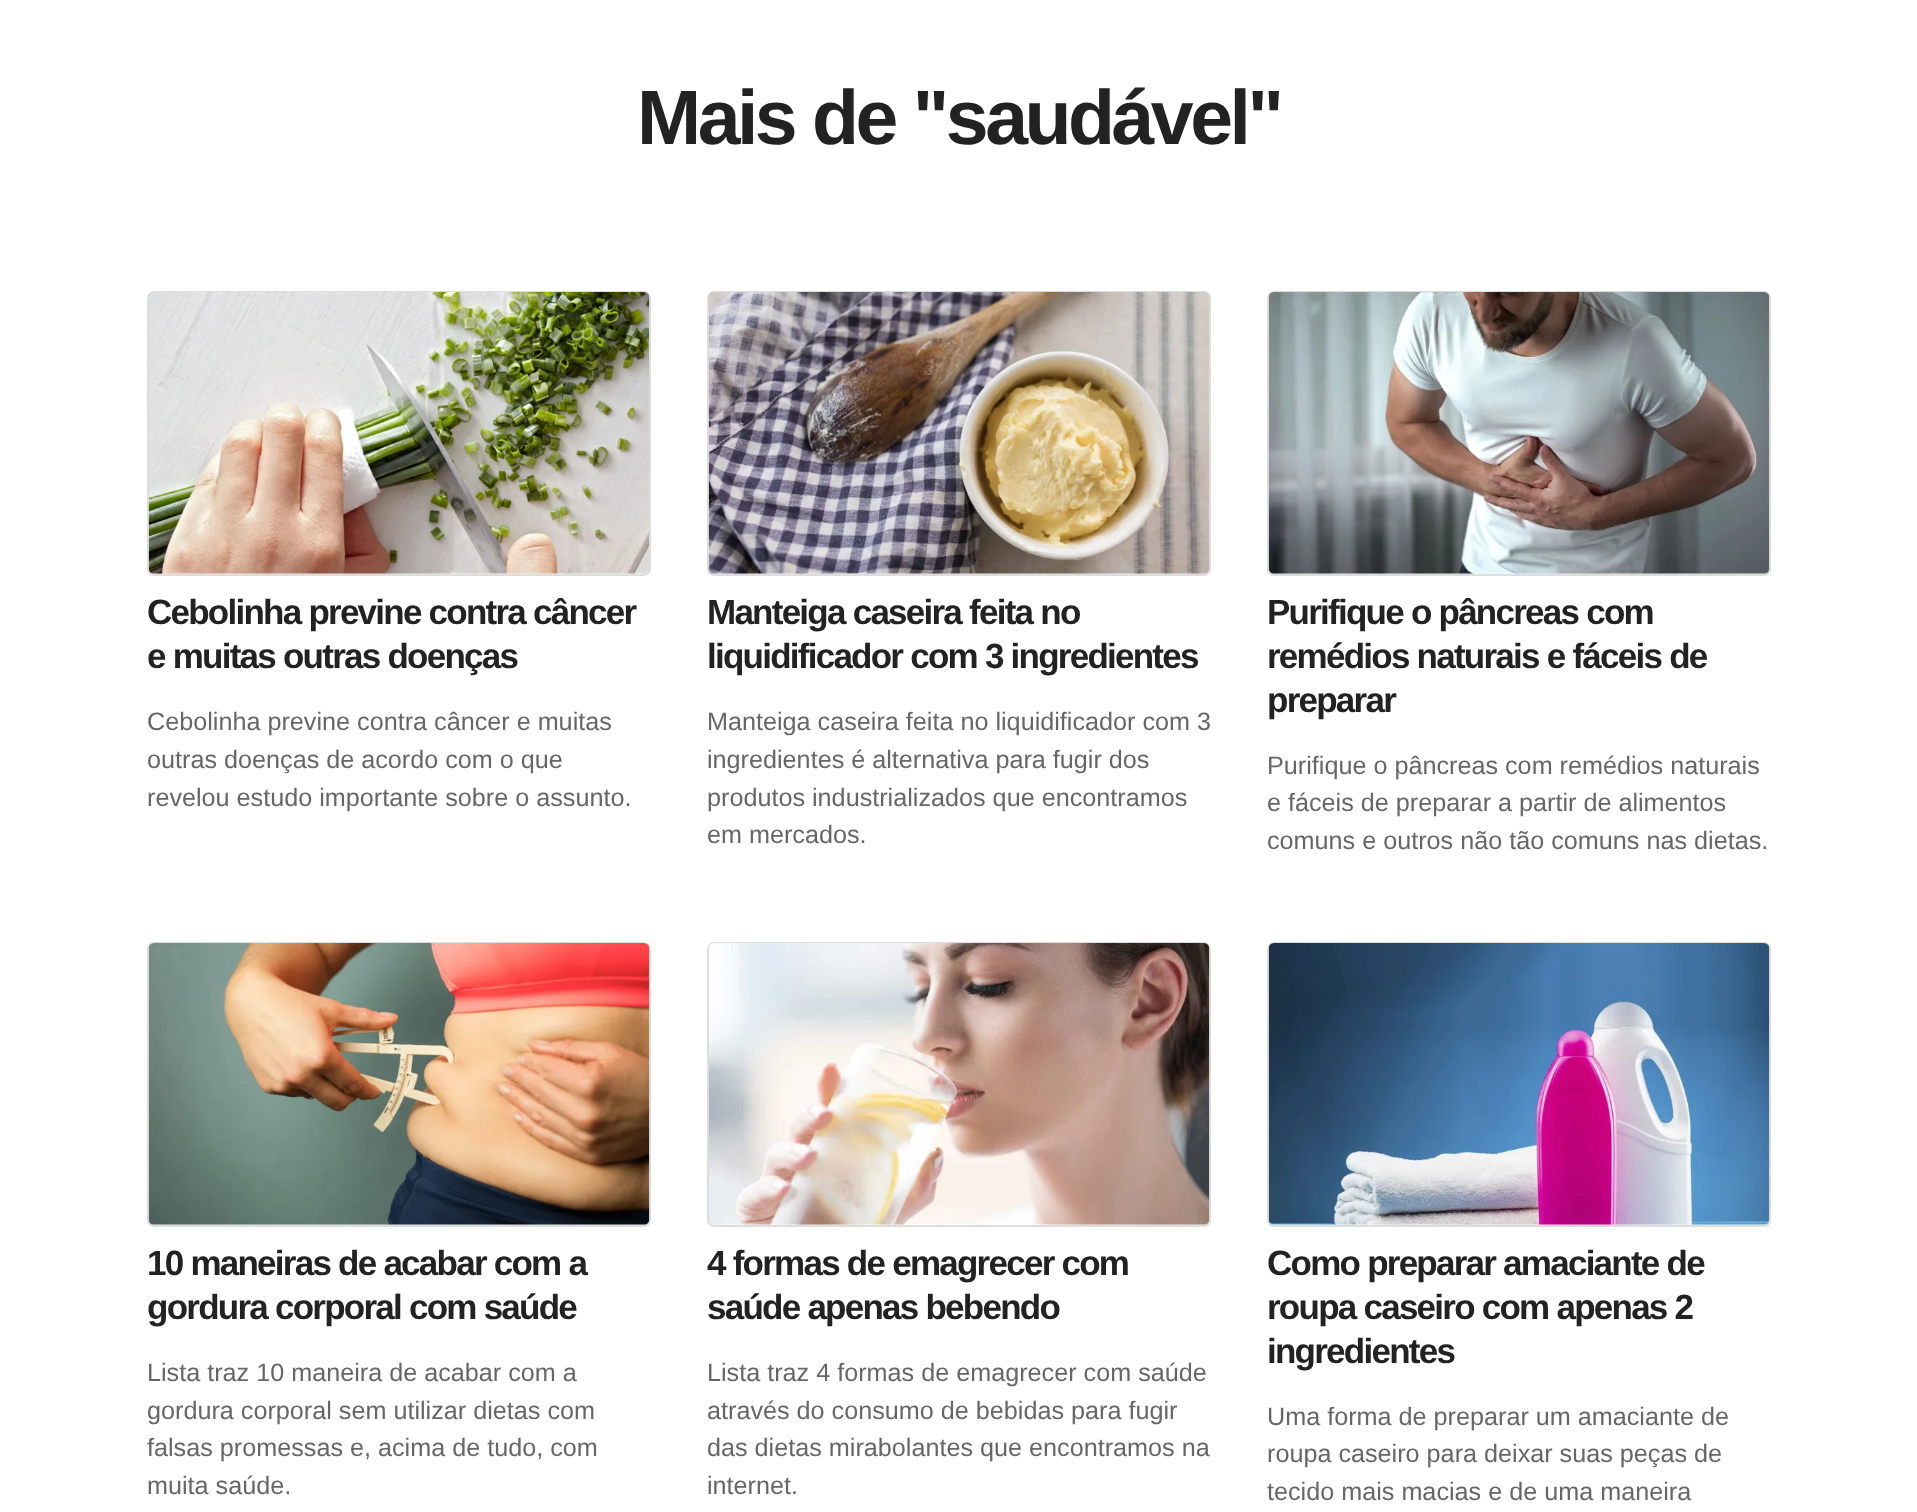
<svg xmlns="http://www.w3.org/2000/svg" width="1917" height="1512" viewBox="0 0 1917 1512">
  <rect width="100%" height="100%" fill="#fff"/>
  <rect x="148" y="292" width="502" height="283" rx="6" fill="none" stroke="#ddd" stroke-width="2"/>
  <image x="148" y="292" width="502" height="282" href="img/1.png"/>
  <rect x="708" y="292" width="502" height="283" rx="6" fill="none" stroke="#ddd" stroke-width="2"/>
  <image x="708" y="292" width="501" height="282" href="img/2.png"/>
  <rect x="1268" y="292" width="502" height="283" rx="6" fill="none" stroke="#ddd" stroke-width="2"/>
  <image x="1268" y="292" width="502" height="282" href="img/3.png"/>
  <rect x="148" y="943" width="502" height="283" rx="6" fill="none" stroke="#ddd" stroke-width="2"/>
  <image x="148" y="943" width="502" height="282" href="img/4.png"/>
  <rect x="708" y="943" width="502" height="283" rx="6" fill="none" stroke="#ddd" stroke-width="2"/>
  <image x="709" y="943" width="501" height="282" href="img/5.png"/>
  <rect x="1268" y="943" width="502" height="283" rx="6" fill="none" stroke="#ddd" stroke-width="2"/>
  <image x="1268" y="943" width="502" height="282" href="img/6.png"/>
  <text x="637" y="144" font-family="Liberation Sans" font-size="77" font-weight="bold" letter-spacing="-3.5" fill="#222">Mais de "saudável"</text>
  <g font-family="Liberation Sans" font-size="35" font-weight="bold" letter-spacing="-1.75" fill="#222">
    <text x="147" y="624">Cebolinha previne contra câncer</text>
    <text x="147" y="668">e muitas outras doenças</text>
  </g>
  <g font-family="Liberation Sans" font-size="25.2" fill="#666">
    <text x="147" y="730">Cebolinha previne contra câncer e muitas</text>
    <text x="147" y="768">outras doenças de acordo com o que</text>
    <text x="147" y="806">revelou estudo importante sobre o assunto.</text>
  </g>
  <g font-family="Liberation Sans" font-size="35" font-weight="bold" letter-spacing="-1.75" fill="#222">
    <text x="707" y="624">Manteiga caseira feita no</text>
    <text x="707" y="668">liquidificador com 3 ingredientes</text>
  </g>
  <g font-family="Liberation Sans" font-size="25.2" fill="#666">
    <text x="707" y="730">Manteiga caseira feita no liquidificador com 3</text>
    <text x="707" y="768">ingredientes é alternativa para fugir dos</text>
    <text x="707" y="806">produtos industrializados que encontramos</text>
    <text x="707" y="843">em mercados.</text>
  </g>
  <g font-family="Liberation Sans" font-size="35" font-weight="bold" letter-spacing="-1.75" fill="#222">
    <text x="1267" y="624">Purifique o pâncreas com</text>
    <text x="1267" y="668">remédios naturais e fáceis de</text>
    <text x="1267" y="712">preparar</text>
  </g>
  <g font-family="Liberation Sans" font-size="25.2" fill="#666">
    <text x="1267" y="774">Purifique o pâncreas com remédios naturais</text>
    <text x="1267" y="811">e fáceis de preparar a partir de alimentos</text>
    <text x="1267" y="849">comuns e outros não tão comuns nas dietas.</text>
  </g>
  <g font-family="Liberation Sans" font-size="35" font-weight="bold" letter-spacing="-1.75" fill="#222">
    <text x="147" y="1275">10 maneiras de acabar com a</text>
    <text x="147" y="1319">gordura corporal com saúde</text>
  </g>
  <g font-family="Liberation Sans" font-size="25.2" fill="#666">
    <text x="147" y="1381">Lista traz 10 maneira de acabar com a</text>
    <text x="147" y="1419">gordura corporal sem utilizar dietas com</text>
    <text x="147" y="1456">falsas promessas e, acima de tudo, com</text>
    <text x="147" y="1494">muita saúde.</text>
  </g>
  <g font-family="Liberation Sans" font-size="35" font-weight="bold" letter-spacing="-1.75" fill="#222">
    <text x="707" y="1275">4 formas de emagrecer com</text>
    <text x="707" y="1319">saúde apenas bebendo</text>
  </g>
  <g font-family="Liberation Sans" font-size="25.2" fill="#666">
    <text x="707" y="1381">Lista traz 4 formas de emagrecer com saúde</text>
    <text x="707" y="1419">através do consumo de bebidas para fugir</text>
    <text x="707" y="1456">das dietas mirabolantes que encontramos na</text>
    <text x="707" y="1494">internet.</text>
  </g>
  <g font-family="Liberation Sans" font-size="35" font-weight="bold" letter-spacing="-1.75" fill="#222">
    <text x="1267" y="1275">Como preparar amaciante de</text>
    <text x="1267" y="1319">roupa caseiro com apenas 2</text>
    <text x="1267" y="1363">ingredientes</text>
  </g>
  <g font-family="Liberation Sans" font-size="25.2" fill="#666">
    <text x="1267" y="1425">Uma forma de preparar um amaciante de</text>
    <text x="1267" y="1462">roupa caseiro para deixar suas peças de</text>
    <text x="1267" y="1500">tecido mais macias e de uma maneira</text>
  </g>
</svg>
